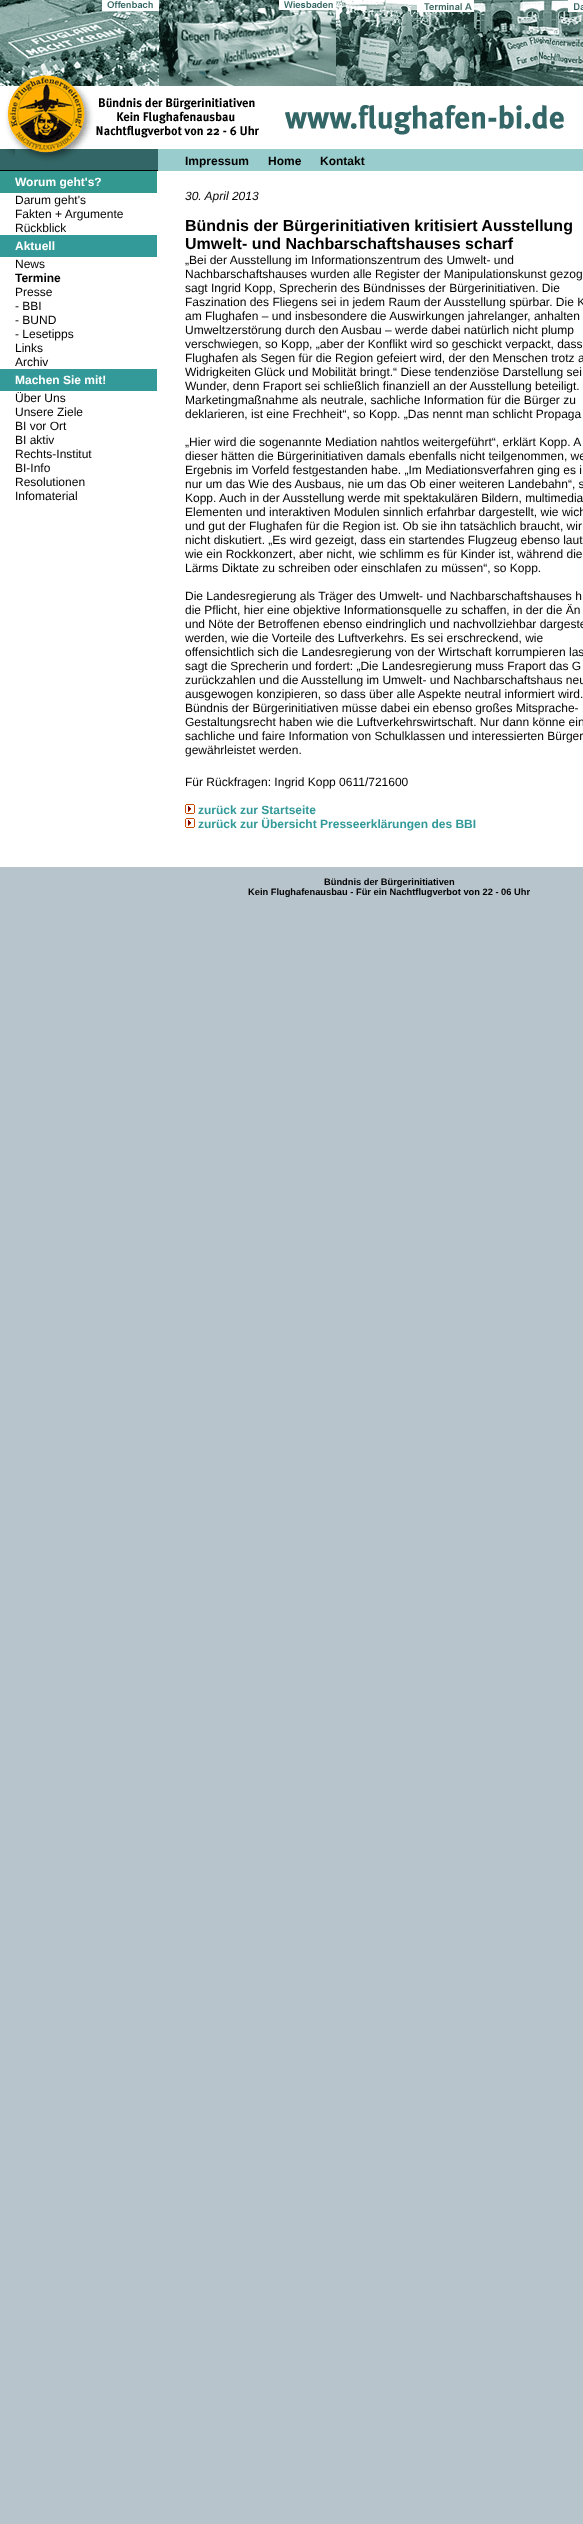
<svg xmlns="http://www.w3.org/2000/svg" width="583" height="2524" viewBox="0 0 583 2524">
  <rect width="100%" height="100%" fill="#b8c4cc"/>
  <image x="0" y="0" width="159" height="86" href="img/1.png"/>
  <image x="159" y="0" width="177" height="86" href="img/2.png"/>
  <image x="336" y="0" width="138" height="86" href="img/3.png"/>
  <image x="474" y="0" width="109" height="86" href="img/4.png"/>
  <image x="0" y="86" width="583" height="63" href="img/5.png"/>
  <image x="0" y="149" width="15" height="22" href="img/6.png"/>
  <image x="15" y="149" width="143" height="22" href="img/7.png"/>
  <path d="M158 149h425v22H158z" fill="#9cc"/>
  <path d="M0 171h583v696H0z" fill="#fff"/>
  <path d="M0 171h157v22H0z" fill="#339990"/>
  <path d="M0 235h157v22H0z" fill="#399"/>
  <path d="M0 369h157v22H0z" fill="#399"/>
  <image x="185" y="804" width="10" height="10" href="img/8.png"/>
  <image x="185" y="818" width="10" height="10" href="img/8.png"/>
  <g font-family="Liberation Sans" font-size="12" font-weight="bold" fill="#000">
    <text x="185" y="165">Impressum</text>
    <text x="268" y="165">Home</text>
    <text x="320" y="165">Kontakt</text>
  </g>
  <text x="15" y="186" font-family="Liberation Sans" font-size="12" font-weight="bold" fill="#fff">Worum geht's?</text>
  <g font-family="Liberation Sans" font-size="12" fill="#000">
    <text x="15" y="204">Darum geht's</text>
    <text x="15" y="218">Fakten + Argumente</text>
    <text x="15" y="232">Rückblick</text>
  </g>
  <text x="15" y="250" font-family="Liberation Sans" font-size="12" font-weight="bold" fill="#fff">Aktuell</text>
  <text x="15" y="268" font-family="Liberation Sans" font-size="12" fill="#000">News</text>
  <text x="15" y="282" font-family="Liberation Sans" font-size="12" font-weight="bold" fill="#000">Termine</text>
  <g font-family="Liberation Sans" font-size="12" fill="#000">
    <text x="15" y="296">Presse</text>
    <text x="15" y="310">- BBI</text>
    <text x="15" y="324">- BUND</text>
    <text x="15" y="338">- Lesetipps</text>
    <text x="15" y="352">Links</text>
    <text x="15" y="366">Archiv</text>
  </g>
  <text x="15" y="384" font-family="Liberation Sans" font-size="12" font-weight="bold" fill="#fff">Machen Sie mit!</text>
  <g font-family="Liberation Sans" font-size="12" fill="#000">
    <text x="15" y="402">Über Uns</text>
    <text x="15" y="416">Unsere Ziele</text>
    <text x="15" y="430">BI vor Ort</text>
    <text x="15" y="444">BI aktiv</text>
    <text x="15" y="458">Rechts-Institut</text>
    <text x="15" y="472">BI-Info</text>
    <text x="15" y="486">Resolutionen</text>
    <text x="15" y="500">Infomaterial</text>
  </g>
  <text x="185" y="200" font-family="Liberation Sans" font-size="12" font-style="italic" fill="#000">30. April 2013</text>
  <g font-family="Liberation Sans" font-size="16" font-weight="bold" fill="#000">
    <text x="185" y="231">Bündnis der Bürgerinitiativen kritisiert Ausstellung</text>
    <text x="185" y="249">Umwelt- und Nachbarschaftshauses scharf</text>
  </g>
  <g font-family="Liberation Sans" font-size="12" fill="#000">
    <text x="185" y="264">„Bei der Ausstellung im Informationszentrum des Umwelt- und</text>
    <text x="185" y="278">Nachbarschaftshauses wurden alle Register der Manipulationskunst gezog</text>
    <text x="185" y="292">sagt Ingrid Kopp, Sprecherin des Bündnisses der Bürgerinitiativen. Die</text>
    <text x="185" y="306">Faszination des Fliegens sei in jedem Raum der Ausstellung spürbar. Die K</text>
    <text x="185" y="320">am Flughafen – und insbesondere die Auswirkungen jahrelanger, anhalten</text>
    <text x="185" y="334">Umweltzerstörung durch den Ausbau – werde dabei natürlich nicht plump</text>
    <text x="185" y="348">verschwiegen, so Kopp, „aber der Konflikt wird so geschickt verpackt, dass</text>
    <text x="185" y="362">Flughafen als Segen für die Region gefeiert wird, der den Menschen trotz a</text>
    <text x="185" y="376">Widrigkeiten Glück und Mobilität bringt.“ Diese tendenziöse Darstellung sei</text>
    <text x="185" y="390">Wunder, denn Fraport sei schließlich finanziell an der Ausstellung beteiligt.</text>
    <text x="185" y="404">Marketingmaßnahme als neutrale, sachliche Information für die Bürger zu</text>
    <text x="185" y="418">deklarieren, ist eine Frechheit“, so Kopp. „Das nennt man schlicht Propaga</text>
    <text x="185" y="446">„Hier wird die sogenannte Mediation nahtlos weitergeführt“, erklärt Kopp. A</text>
    <text x="185" y="460">dieser hätten die Bürgerinitiativen damals ebenfalls nicht teilgenommen, we</text>
    <text x="185" y="474">Ergebnis im Vorfeld festgestanden habe. „Im Mediationsverfahren ging es i</text>
    <text x="185" y="488">nur um das Wie des Ausbaus, nie um das Ob einer weiteren Landebahn“, s</text>
    <text x="185" y="502">Kopp. Auch in der Ausstellung werde mit spektakulären Bildern, multimedia</text>
    <text x="185" y="516">Elementen und interaktiven Modulen sinnlich erfahrbar dargestellt, wie wich</text>
    <text x="185" y="530">und gut der Flughafen für die Region ist. Ob sie ihn tatsächlich braucht, wir</text>
    <text x="185" y="544">nicht diskutiert. „Es wird gezeigt, dass ein startendes Flugzeug ebenso laut</text>
    <text x="185" y="558">wie ein Rockkonzert, aber nicht, wie schlimm es für Kinder ist, während die</text>
    <text x="185" y="572">Lärms Diktate zu schreiben oder einschlafen zu müssen“, so Kopp.</text>
    <text x="185" y="600">Die Landesregierung als Träger des Umwelt- und Nachbarschaftshauses h</text>
    <text x="185" y="614">die Pflicht, hier eine objektive Informationsquelle zu schaffen, in der die Än</text>
    <text x="185" y="628">und Nöte der Betroffenen ebenso eindringlich und nachvollziehbar dargeste</text>
    <text x="185" y="642">werden, wie die Vorteile des Luftverkehrs. Es sei erschreckend, wie</text>
    <text x="185" y="656">offensichtlich sich die Landesregierung von der Wirtschaft korrumpieren las</text>
    <text x="185" y="670">sagt die Sprecherin und fordert: „Die Landesregierung muss Fraport das G</text>
    <text x="185" y="684">zurückzahlen und die Ausstellung im Umwelt- und Nachbarschaftshaus neu</text>
    <text x="185" y="698">ausgewogen konzipieren, so dass über alle Aspekte neutral informiert wird.</text>
    <text x="185" y="712">Bündnis der Bürgerinitiativen müsse dabei ein ebenso großes Mitsprache-</text>
    <text x="185" y="726">Gestaltungsrecht haben wie die Luftverkehrswirtschaft. Nur dann könne ein</text>
    <text x="185" y="740">sachliche und faire Information von Schulklassen und interessierten Bürger</text>
    <text x="185" y="754">gewährleistet werden.</text>
    <text x="185" y="786">Für Rückfragen: Ingrid Kopp 0611/721600</text>
  </g>
  <g font-family="Liberation Sans" font-size="12" font-weight="bold" fill="#399">
    <text x="198" y="814">zurück zur Startseite</text>
    <text x="198" y="828">zurück zur Übersicht Presseerklärungen des BBI</text>
  </g>
  <g font-family="Liberation Sans" font-size="9.3" font-weight="bold" fill="#000">
    <text x="324" y="885">Bündnis der Bürgerinitiativen</text>
    <text x="248" y="895">Kein Flughafenausbau - Für ein Nachtflugverbot von 22 - 06 Uhr</text>
  </g>
</svg>
